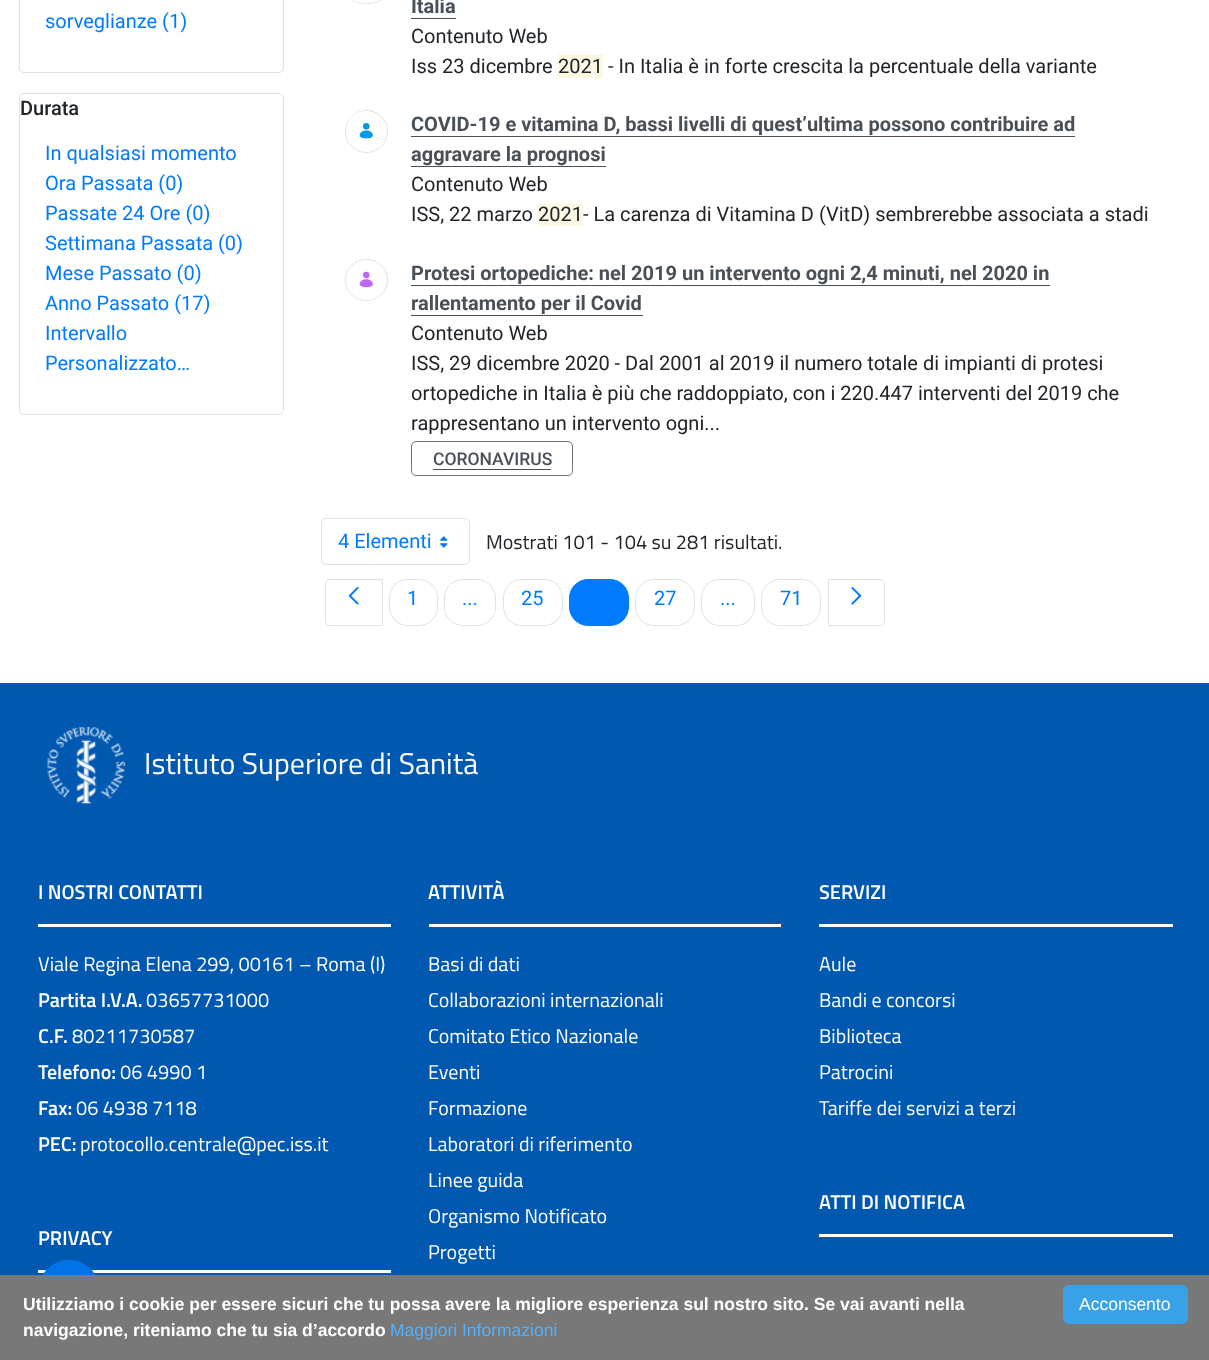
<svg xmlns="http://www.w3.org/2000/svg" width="1209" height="1360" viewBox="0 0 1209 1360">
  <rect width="100%" height="100%" fill="#fff"/>
  <rect x="19.5" y="-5.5" width="264" height="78" rx="4.5" fill="none" stroke="#dfdfdf"/>
  <rect x="19.5" y="93.5" width="264" height="321" rx="4.5" fill="none" stroke="#dfdfdf"/>
  <rect x="345.5" y="-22.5" width="42" height="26" rx="21" fill="none" stroke="#dee2e6"/>
  <rect x="346" y="-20" width="40" height="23" rx="20" fill="#fff"/>
  <path d="M411 18h45v1H411z" fill="#495057"/>
  <path d="M558 54h45v24H558z" fill="#fcf8e3"/>
  <circle cx="366.5" cy="131.5" r="21" fill="none" stroke="#dee2e6"/>
  <circle cx="366" cy="131" r="20" fill="#fff"/>
  <image x="359" y="123" width="14" height="16" href="img/1.png"/>
  <path d="M411 136h664v1H411z" fill="#495057"/>
  <path d="M411 166h195v1H411z" fill="#495057"/>
  <path d="M538 203h45v23H538z" fill="#fcf8e3"/>
  <rect x="345.5" y="259.5" width="42" height="41" rx="20.5" fill="none" stroke="#dee2e6"/>
  <circle cx="366" cy="280" r="20" fill="#fff"/>
  <image x="359" y="271" width="14" height="17" href="img/2.png"/>
  <path d="M411 285h639v1H411z" fill="#495057"/>
  <path d="M411 315h232v1H411z" fill="#495057"/>
  <rect x="411.5" y="441.5" width="161" height="34" rx="4.5" fill="none" stroke="#6c757d"/>
  <path d="M433 469h118v1H433z" fill="#495057"/>
  <rect x="321.5" y="518.5" width="148" height="46" rx="4.5" fill="none" stroke="#dee2e6"/>
  <image x="440" y="536" width="8" height="12" href="img/3.png"/>
  <path d="M330 579.5H382.5V625.5H330C327.5 625.5 325.5 623.5 325.5 621V584C325.5 581.5 327.5 579.5 330 579.5Z" fill="none" stroke="#dee2e6"/>
  <image x="348" y="587" width="11" height="18" href="img/4.png"/>
  <rect x="389.5" y="579.5" width="48" height="46" rx="18.5" fill="none" stroke="#dee2e6"/>
  <rect x="444.5" y="579.5" width="51" height="46" rx="18.5" fill="none" stroke="#dee2e6"/>
  <rect x="503.5" y="579.5" width="59" height="46" rx="18.5" fill="none" stroke="#dee2e6"/>
  <rect x="569.5" y="579.5" width="59" height="46" rx="18.5" fill="#007bff" stroke="#007bff"/>
  <rect x="635.5" y="579.5" width="59" height="46" rx="18.5" fill="none" stroke="#dee2e6"/>
  <rect x="701.5" y="579.5" width="53" height="46" rx="18.5" fill="none" stroke="#dee2e6"/>
  <rect x="761.5" y="579.5" width="59" height="46" rx="18.5" fill="none" stroke="#dee2e6"/>
  <path d="M828.5 579.5H880C882.5 579.5 884.5 581.5 884.5 584V621C884.5 623.5 882.5 625.5 880 625.5H828.5Z" fill="none" stroke="#dee2e6"/>
  <image x="851" y="587" width="11" height="18" href="img/5.png"/>
  <path d="M0 683h1209v592H0z" fill="#0158b0"/>
  <image x="47" y="726" width="79" height="78" href="img/6.png"/>
  <path d="M38 924h353v3H38z" fill="#fff"/>
  <path d="M38 1270h353v3H38z" fill="#fff"/>
  <path d="M429 924h352v3H429z" fill="#fff"/>
  <path d="M819 924h354v3H819z" fill="#fff"/>
  <path d="M819 1234h354v3H819z" fill="#fff"/>
  <rect x="38" y="1260" width="62" height="63" rx="31" fill="#0073e6"/>
  <path d="M0 1275h1209v85H0z" fill="#787878"/>
  <rect x="1063" y="1285" width="125" height="39" rx="6" fill="#39a1e6"/>
  <text x="45" y="28" font-family="Roboto" font-size="20" fill="#007bff">sorveglianze (1)</text>
  <text x="20" y="115" font-family="Roboto" font-size="20" font-weight="500" fill="#212529">Durata</text>
  <g font-family="Roboto" font-size="20" fill="#007bff">
    <text x="45" y="160">In qualsiasi momento</text>
    <text x="45" y="190">Ora Passata (0)</text>
    <text x="45" y="220">Passate 24 Ore (0)</text>
    <text x="45" y="250">Settimana Passata (0)</text>
    <text x="45" y="280">Mese Passato (0)</text>
    <text x="45" y="310">Anno Passato (17)</text>
    <text x="45" y="340">Intervallo</text>
    <text x="45" y="370">Personalizzato…</text>
  </g>
  <text x="411" y="13" font-family="Roboto" font-size="20" font-weight="bold" fill="#495057">Italia</text>
  <g font-family="Roboto" font-size="20" fill="#212529">
    <text x="411" y="43">Contenuto Web</text>
    <text x="411" y="73">Iss 23 dicembre</text>
    <text x="558" y="73">2021</text>
    <text x="608" y="73">- In Italia è in forte crescita la percentuale della variante</text>
  </g>
  <g font-family="Roboto" font-size="20" font-weight="bold" fill="#495057">
    <text x="411" y="131">COVID-19 e vitamina D, bassi livelli di quest’ultima possono contribuire ad</text>
    <text x="411" y="161">aggravare la prognosi</text>
  </g>
  <g font-family="Roboto" font-size="20" fill="#212529">
    <text x="411" y="191">Contenuto Web</text>
    <text x="411" y="221">ISS, 22 marzo</text>
    <text x="538" y="221">2021</text>
    <text x="583" y="221">- La carenza di Vitamina D (VitD) sembrerebbe associata a stadi</text>
  </g>
  <g font-family="Roboto" font-size="20" font-weight="bold" fill="#495057">
    <text x="411" y="280">Protesi ortopediche: nel 2019 un intervento ogni 2,4 minuti, nel 2020 in</text>
    <text x="411" y="310">rallentamento per il Covid</text>
  </g>
  <g font-family="Roboto" font-size="20" fill="#212529">
    <text x="411" y="340">Contenuto Web</text>
    <text x="411" y="370">ISS, 29 dicembre 2020 - Dal 2001 al 2019 il numero totale di impianti di protesi</text>
    <text x="411" y="400">ortopediche in Italia è più che raddoppiato, con i 220.447 interventi del 2019 che</text>
    <text x="411" y="430">rappresentano un intervento ogni...</text>
  </g>
  <text x="433" y="465" font-family="Roboto" font-size="17.5" font-weight="500" fill="#495057">CORONAVIRUS</text>
  <text x="338" y="548" font-family="Roboto" font-size="20" fill="#007bff">4 Elementi</text>
  <text x="486" y="549" font-family="Titillium Web" font-size="20" fill="#212529">Mostrati 101 - 104 su 281 risultati.</text>
  <g font-family="Roboto" font-size="20" fill="#007bff">
    <text x="407" y="605">1</text>
    <text x="462" y="605">...</text>
    <text x="521" y="605">25</text>
    <text x="654" y="605">27</text>
    <text x="720" y="605">...</text>
    <text x="780" y="605">71</text>
  </g>
  <text x="144" y="774" font-family="Titillium Web" font-size="30" fill="#fff">Istituto Superiore di Sanità</text>
  <text x="38" y="899" font-family="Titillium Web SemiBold" font-size="20" font-weight="600" fill="#fff">I NOSTRI CONTATTI</text>
  <text x="38" y="971" font-family="Titillium Web" font-size="20" fill="#fff">Viale Regina Elena 299, 00161 – Roma (I)</text>
  <text x="38" y="1007" font-family="Titillium Web SemiBold" font-size="20" font-weight="600" fill="#fff">Partita I.V.A.</text>
  <text x="146" y="1007" font-family="Titillium Web" font-size="20" fill="#fff">03657731000</text>
  <text x="38" y="1043" font-family="Titillium Web SemiBold" font-size="20" font-weight="600" fill="#fff">C.F.</text>
  <text x="72" y="1043" font-family="Titillium Web" font-size="20" fill="#fff">80211730587</text>
  <text x="38" y="1079" font-family="Titillium Web SemiBold" font-size="20" font-weight="600" fill="#fff">Telefono:</text>
  <text x="120" y="1079" font-family="Titillium Web" font-size="20" fill="#fff">06 4990 1</text>
  <text x="38" y="1115" font-family="Titillium Web SemiBold" font-size="20" font-weight="600" fill="#fff">Fax:</text>
  <text x="76" y="1115" font-family="Titillium Web" font-size="20" fill="#fff">06 4938 7118</text>
  <text x="38" y="1151" font-family="Titillium Web SemiBold" font-size="20" font-weight="600" fill="#fff">PEC:</text>
  <text x="80" y="1151" font-family="Titillium Web" font-size="20" fill="#fff">protocollo.centrale@pec.iss.it</text>
  <g font-family="Titillium Web SemiBold" font-size="20" font-weight="600" fill="#fff">
    <text x="38" y="1245">PRIVACY</text>
    <text x="428" y="899">ATTIVITÀ</text>
  </g>
  <g font-family="Titillium Web" font-size="20" fill="#fff">
    <text x="428" y="971">Basi di dati</text>
    <text x="428" y="1007">Collaborazioni internazionali</text>
    <text x="428" y="1043">Comitato Etico Nazionale</text>
    <text x="428" y="1079">Eventi</text>
    <text x="428" y="1115">Formazione</text>
    <text x="428" y="1151">Laboratori di riferimento</text>
    <text x="428" y="1187">Linee guida</text>
    <text x="428" y="1223">Organismo Notificato</text>
    <text x="428" y="1259">Progetti</text>
  </g>
  <text x="819" y="899" font-family="Titillium Web SemiBold" font-size="20" font-weight="600" fill="#fff">SERVIZI</text>
  <g font-family="Titillium Web" font-size="20" fill="#fff">
    <text x="819" y="971">Aule</text>
    <text x="819" y="1007">Bandi e concorsi</text>
    <text x="819" y="1043">Biblioteca</text>
    <text x="819" y="1079">Patrocini</text>
    <text x="819" y="1115">Tariffe dei servizi a terzi</text>
  </g>
  <text x="819" y="1209" font-family="Titillium Web SemiBold" font-size="20" font-weight="600" fill="#fff">ATTI DI NOTIFICA</text>
  <g font-family="Liberation Sans" font-size="17.5" font-weight="bold" fill="#fff">
    <text x="23" y="1310">Utilizziamo i cookie per essere sicuri che tu possa avere la migliore esperienza sul nostro sito. Se vai avanti nella</text>
    <text x="23" y="1336">navigazione, riteniamo che tu sia d’accordo</text>
  </g>
  <text x="390" y="1336" font-family="Liberation Sans" font-size="17.5" fill="#52b1ff">Maggiori Informazioni</text>
  <text x="1079" y="1310" font-family="Liberation Sans" font-size="17.5" fill="#fff">Acconsento</text>
</svg>
